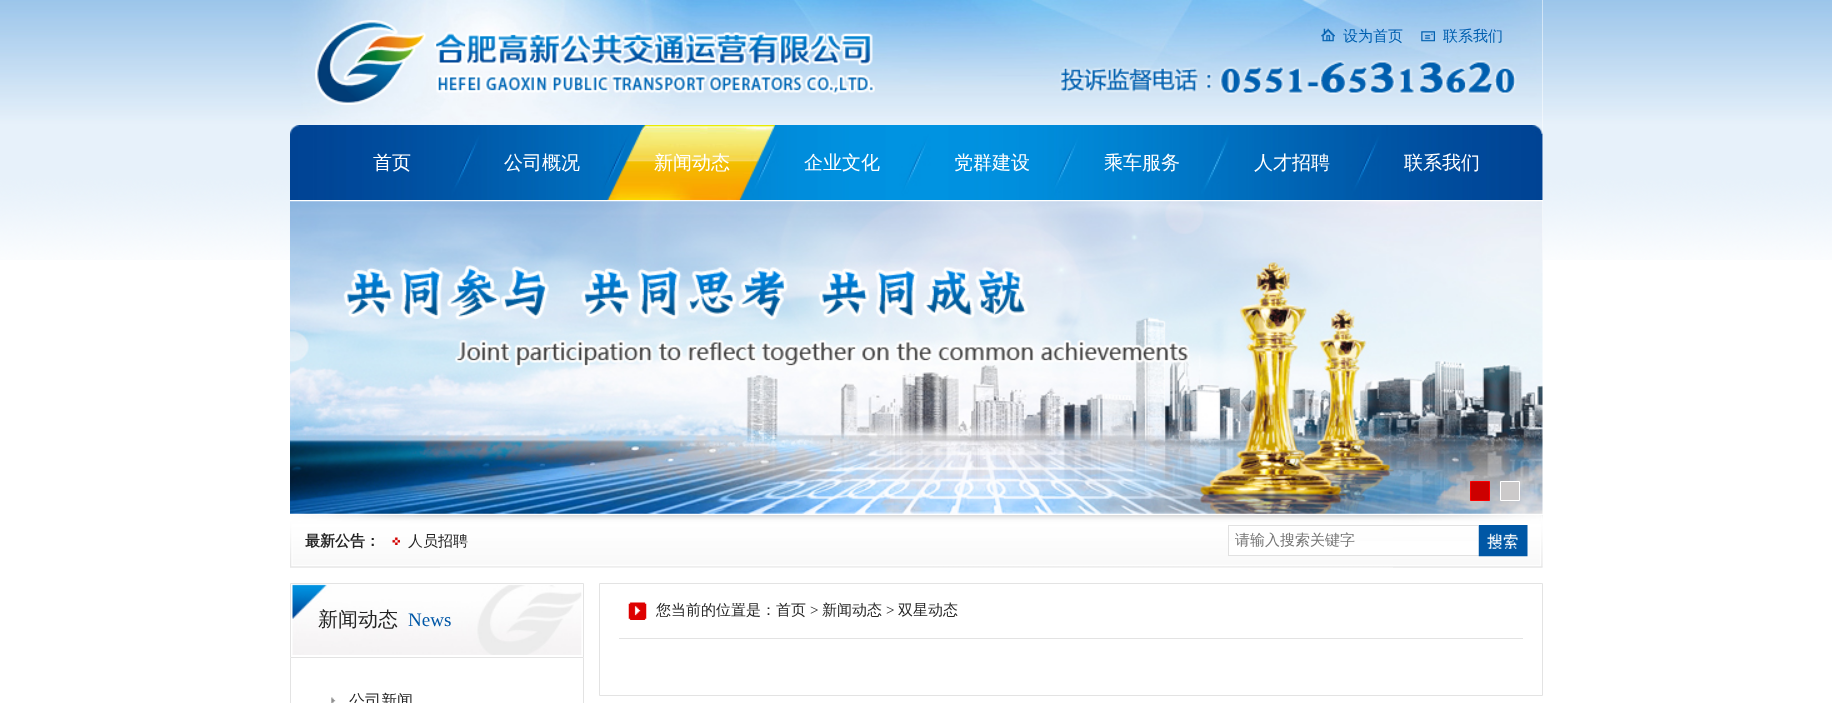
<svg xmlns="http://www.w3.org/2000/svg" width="1832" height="703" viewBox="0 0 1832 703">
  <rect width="100%" height="100%" fill="#fff"/>
  <image x="0" y="0" width="1832" height="260" href="img/1.png"/>
  <path d="M290 0h1253v260H290z" fill="#fff"/>
  <image x="290" y="0" width="1253" height="125" href="img/2.png"/>
  <image x="315" y="20" width="560" height="85" href="img/3.png"/>
  <image x="1321" y="28" width="14" height="14" href="img/4.png"/>
  <image x="1421" y="31" width="14" height="11" href="img/5.png"/>
  <image x="1059" y="60" width="458" height="35" href="img/6.png"/>
  <image x="290" y="125" width="1253" height="75" href="img/7.png"/>
  <image x="607" y="125" width="168" height="75" href="img/8.png"/>
  <image x="290" y="201" width="1253" height="313" href="img/9.png"/>
  <path d="M1470.5 481.5h19v19H1470.5z" fill="#c00" stroke="#f00"/>
  <path d="M1500.5 481.5h19v19H1500.5z" fill="#cccaca" stroke="#fff"/>
  <image x="290" y="515" width="1253" height="53" href="img/10.png"/>
  <image x="290" y="515" width="150" height="53" href="img/11.png"/>
  <image x="1393" y="515" width="150" height="53" href="img/12.png"/>
  <image x="392" y="537" width="8" height="8" href="img/13.png"/>
  <path d="M1229 541h249v14H1229z" fill="#fff"/>
  <path d="M1228 525h251v1H1228z" fill="#e1e1e1"/>
  <path d="M1478 525h1v31H1478z" fill="#fff"/>
  <path d="M1228 555h251v1H1228z" fill="#e1e1e1"/>
  <path d="M1228 525h1v31H1228z" fill="#e1e1e1"/>
  <image x="1478" y="525" width="50" height="32" href="img/14.png"/>
  <image x="292" y="584" width="290" height="71" href="img/15.png"/>
  <path d="M290.5 583.5h293v74H290.5z" fill="none" stroke="#e3e3e3"/>
  <path d="M583 658h1v45H583z" fill="#e3e3e3"/>
  <path d="M290 658h1v45H290z" fill="#e3e3e3"/>
  <image x="331" y="697" width="5" height="6" href="img/16.png"/>
  <path d="M599.5 583.5h943v112H599.5z" fill="none" stroke="#e3e3e3"/>
  <image x="628" y="602" width="19" height="18" href="img/17.png"/>
  <path d="M619 638h904v1H619z" fill="#e3e3e3"/>
  <g font-family="WenQuanYi Zen Hei" font-size="15" font-weight="500" fill="#005faf">
    <text x="1343" y="41">设为首页</text>
    <text x="1443" y="41">联系我们</text>
  </g>
  <g font-family="WenQuanYi Zen Hei" font-size="19" font-weight="500" fill="#fff">
    <text x="373" y="169">首页</text>
    <text x="504" y="169">公司概况</text>
    <text x="654" y="169">新闻动态</text>
    <text x="804" y="169">企业文化</text>
    <text x="954" y="169">党群建设</text>
    <text x="1104" y="169">乘车服务</text>
    <text x="1254" y="169">人才招聘</text>
    <text x="1404" y="169">联系我们</text>
  </g>
  <text x="305" y="546" font-family="WenQuanYi Zen Hei" font-size="15" font-weight="bold" fill="#242424">最新公告：</text>
  <text x="408" y="546" font-family="WenQuanYi Zen Hei" font-size="15" font-weight="500" fill="#242424">人员招聘</text>
  <text x="1235" y="545" font-family="WenQuanYi Zen Hei" font-size="15" font-weight="500" fill="#757575">请输入搜索关键字</text>
  <text x="318" y="626" font-family="WenQuanYi Zen Hei" font-size="20" font-weight="500" fill="#242424">新闻动态</text>
  <text x="408" y="626" font-family="Liberation Serif" font-size="19" fill="#0057a7">News</text>
  <text x="349" y="706" font-family="WenQuanYi Zen Hei" font-size="16" font-weight="500" fill="#242424">公司新闻</text>
  <text x="656" y="615" font-family="WenQuanYi Zen Hei" font-size="15" font-weight="500" fill="#242424">您当前的位置是：首页</text>
  <text x="810" y="615" font-family="Liberation Serif" font-size="15" fill="#242424">&gt;</text>
  <text x="822" y="615" font-family="WenQuanYi Zen Hei" font-size="15" font-weight="500" fill="#242424">新闻动态</text>
  <text x="886" y="615" font-family="Liberation Serif" font-size="15" fill="#242424">&gt;</text>
  <text x="898" y="615" font-family="WenQuanYi Zen Hei" font-size="15" font-weight="500" fill="#242424">双星动态</text>
</svg>
